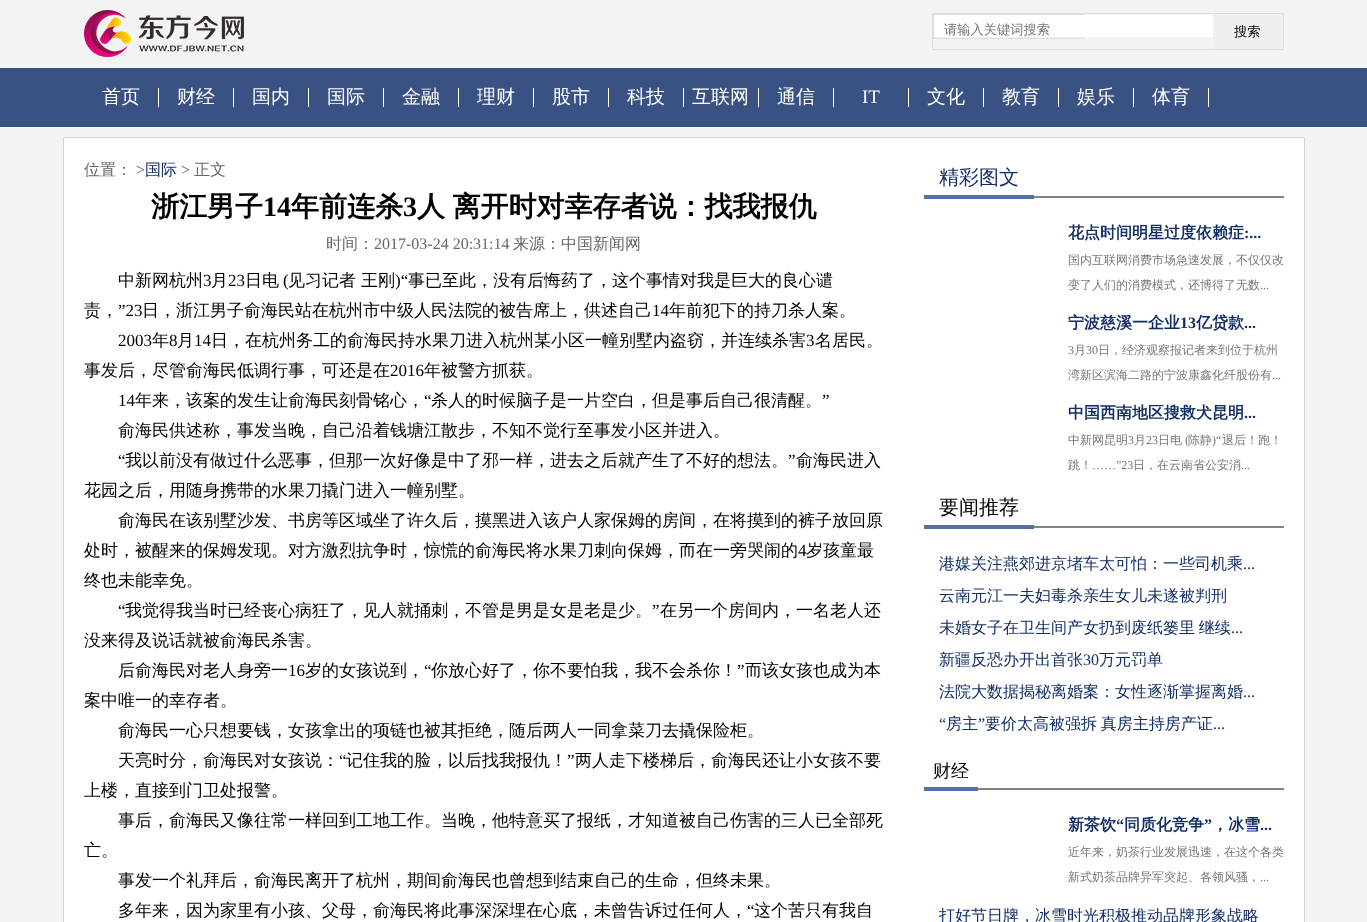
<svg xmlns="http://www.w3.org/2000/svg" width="1367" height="922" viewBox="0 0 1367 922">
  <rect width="100%" height="100%" fill="#f3f3f3"/>
  <image x="84" y="10" width="160" height="47" href="img/1.png"/>
  <path d="M932.5 13.5h351v36H932.5z" fill="none" stroke="#dfdcdc"/>
  <path d="M933.5 14.5h151v24H933.5z" fill="none" stroke="#dedede"/>
  <path d="M934 15h279v22H934z" fill="#fff"/>
  <path d="M1213 14h70v35H1213z" fill="#efefef"/>
  <path d="M0 68h1367v59H0z" fill="#395183"/>
  <path d="M158 88h1v19H158z" fill="#fff"/>
  <path d="M233 88h1v19H233z" fill="#fff"/>
  <path d="M308 88h1v19H308z" fill="#fff"/>
  <path d="M383 88h1v19H383z" fill="#fff"/>
  <path d="M458 88h1v19H458z" fill="#fff"/>
  <path d="M533 88h1v19H533z" fill="#fff"/>
  <path d="M608 88h1v19H608z" fill="#fff"/>
  <path d="M683 88h1v19H683z" fill="#fff"/>
  <path d="M758 88h1v19H758z" fill="#fff"/>
  <path d="M833 88h1v19H833z" fill="#fff"/>
  <path d="M908 88h1v19H908z" fill="#fff"/>
  <path d="M983 88h1v19H983z" fill="#fff"/>
  <path d="M1058 88h1v19H1058z" fill="#fff"/>
  <path d="M1133 88h1v19H1133z" fill="#fff"/>
  <path d="M1208 88h1v19H1208z" fill="#fff"/>
  <path d="M63.5 137.5h1241v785H63.5z" fill="#fff" stroke="#d4d4d4"/>
  <path d="M1034 196h250v2H1034z" fill="#838383"/>
  <path d="M924 195h110v4H924z" fill="#5371a2"/>
  <path d="M1034 526h250v2H1034z" fill="#838383"/>
  <path d="M924 525h110v4H924z" fill="#5371a2"/>
  <path d="M978 788h306v2H978z" fill="#838383"/>
  <path d="M924 787h54v4H924z" fill="#5371a2"/>
  <text x="944" y="34" font-family="WenQuanYi Zen Hei" font-size="13.25" font-weight="500" fill="#777">请输入关键词搜索</text>
  <text x="1234" y="36" font-family="WenQuanYi Zen Hei" font-size="13.25" font-weight="500" fill="#000">搜索</text>
  <g font-family="WenQuanYi Zen Hei" font-size="19" font-weight="500" fill="#fff">
    <text x="102" y="103">首页</text>
    <text x="177" y="103">财经</text>
    <text x="252" y="103">国内</text>
    <text x="327" y="103">国际</text>
    <text x="402" y="103">金融</text>
    <text x="477" y="103">理财</text>
    <text x="552" y="103">股市</text>
    <text x="627" y="103">科技</text>
    <text x="692" y="103">互联网</text>
    <text x="777" y="103">通信</text>
  </g>
  <text x="862" y="103" font-family="Liberation Serif" font-size="19" fill="#fff">IT</text>
  <g font-family="WenQuanYi Zen Hei" font-size="19" font-weight="500" fill="#fff">
    <text x="927" y="103">文化</text>
    <text x="1002" y="103">教育</text>
    <text x="1077" y="103">娱乐</text>
    <text x="1152" y="103">体育</text>
  </g>
  <text x="84" y="175" font-family="WenQuanYi Zen Hei" font-size="16" font-weight="500" fill="#666">位置：</text>
  <text x="136" y="175" font-family="Liberation Serif" font-size="16" fill="#666">&gt;</text>
  <text x="145" y="175" font-family="WenQuanYi Zen Hei" font-size="16" font-weight="500" fill="#122e67">国际</text>
  <text x="181" y="175" font-family="Liberation Serif" font-size="16" fill="#666">&gt;</text>
  <text x="194" y="175" font-family="WenQuanYi Zen Hei" font-size="16" font-weight="500" fill="#666">正文</text>
  <text x="151" y="216" font-family="WenQuanYi Zen Hei" font-size="28" font-weight="bold" fill="#000">浙江男子</text>
  <text x="263" y="216" font-family="Liberation Serif" font-size="28" font-weight="bold" fill="#000">14</text>
  <text x="291" y="216" font-family="WenQuanYi Zen Hei" font-size="28" font-weight="bold" fill="#000">年前连杀</text>
  <text x="403" y="216" font-family="Liberation Serif" font-size="28" font-weight="bold" fill="#000">3</text>
  <text x="417" y="216" word-spacing="-1" font-family="WenQuanYi Zen Hei" font-size="28" font-weight="bold" fill="#000">人 离开时对幸存者说：找我报仇</text>
  <text x="326" y="249" font-family="WenQuanYi Zen Hei" font-size="16" font-weight="500" fill="#666">时间：</text>
  <text x="374" y="249" font-family="Liberation Serif" font-size="16" fill="#666">2017-03-24 20:31:14</text>
  <text x="513" y="249" font-family="WenQuanYi Zen Hei" font-size="16" font-weight="500" fill="#666">来源：中国新闻网</text>
  <text x="118" y="286" font-family="WenQuanYi Zen Hei" font-size="17" font-weight="500" fill="#000">中新网杭州</text>
  <text x="203" y="286" font-family="Liberation Serif" font-size="17" fill="#000">3</text>
  <text x="211" y="286" font-family="WenQuanYi Zen Hei" font-size="17" font-weight="500" fill="#000">月</text>
  <text x="228" y="286" font-family="Liberation Serif" font-size="17" fill="#000">23</text>
  <text x="245" y="286" font-family="WenQuanYi Zen Hei" font-size="17" font-weight="500" fill="#000">日电</text>
  <text x="283" y="286" font-family="Liberation Serif" font-size="17" fill="#000">(</text>
  <text x="288" y="286" font-family="WenQuanYi Zen Hei" font-size="17" font-weight="500" fill="#000">见习记者 王刚</text>
  <text x="395" y="286" font-family="Liberation Serif" font-size="17" fill="#000">)“</text>
  <g font-family="WenQuanYi Zen Hei" font-size="17" font-weight="500" fill="#000">
    <text x="408" y="286">事已至此，没有后悔药了，这个事情对我是巨大的良心谴</text>
    <text x="84" y="316">责，</text>
  </g>
  <text x="118" y="316" font-family="Liberation Serif" font-size="17" fill="#000">”23</text>
  <text x="142" y="316" font-family="WenQuanYi Zen Hei" font-size="17" font-weight="500" fill="#000">日，浙江男子俞海民站在杭州市中级人民法院的被告席上，供述自己</text>
  <text x="652" y="316" font-family="Liberation Serif" font-size="17" fill="#000">14</text>
  <text x="669" y="316" font-family="WenQuanYi Zen Hei" font-size="17" font-weight="500" fill="#000">年前犯下的持刀杀人案。</text>
  <text x="118" y="346" font-family="Liberation Serif" font-size="17" fill="#000">2003</text>
  <text x="152" y="346" font-family="WenQuanYi Zen Hei" font-size="17" font-weight="500" fill="#000">年</text>
  <text x="169" y="346" font-family="Liberation Serif" font-size="17" fill="#000">8</text>
  <text x="177" y="346" font-family="WenQuanYi Zen Hei" font-size="17" font-weight="500" fill="#000">月</text>
  <text x="194" y="346" font-family="Liberation Serif" font-size="17" fill="#000">14</text>
  <text x="211" y="346" font-family="WenQuanYi Zen Hei" font-size="17" font-weight="500" fill="#000">日，在杭州务工的俞海民持水果刀进入杭州某小区一幢别墅内盗窃，并连续杀害</text>
  <text x="806" y="346" font-family="Liberation Serif" font-size="17" fill="#000">3</text>
  <g font-family="WenQuanYi Zen Hei" font-size="17" font-weight="500" fill="#000">
    <text x="815" y="346">名居民。</text>
    <text x="84" y="376">事发后，尽管俞海民低调行事，可还是在</text>
  </g>
  <text x="390" y="376" font-family="Liberation Serif" font-size="17" fill="#000">2016</text>
  <text x="424" y="376" font-family="WenQuanYi Zen Hei" font-size="17" font-weight="500" fill="#000">年被警方抓获。</text>
  <text x="118" y="406" font-family="Liberation Serif" font-size="17" fill="#000">14</text>
  <text x="135" y="406" font-family="WenQuanYi Zen Hei" font-size="17" font-weight="500" fill="#000">年来，该案的发生让俞海民刻骨铭心，</text>
  <text x="424" y="406" font-family="Liberation Serif" font-size="17" fill="#000">“</text>
  <text x="431" y="406" font-family="WenQuanYi Zen Hei" font-size="17" font-weight="500" fill="#000">杀人的时候脑子是一片空白，但是事后自己很清醒。</text>
  <text x="822" y="406" font-family="Liberation Serif" font-size="17" fill="#000">”</text>
  <text x="118" y="436" font-family="WenQuanYi Zen Hei" font-size="17" font-weight="500" fill="#000">俞海民供述称，事发当晚，自己沿着钱塘江散步，不知不觉行至事发小区并进入。</text>
  <text x="118" y="466" font-family="Liberation Serif" font-size="17" fill="#000">“</text>
  <text x="125" y="466" font-family="WenQuanYi Zen Hei" font-size="17" font-weight="500" fill="#000">我以前没有做过什么恶事，但那一次好像是中了邪一样，进去之后就产生了不好的想法。</text>
  <text x="788" y="466" font-family="Liberation Serif" font-size="17" fill="#000">”</text>
  <g font-family="WenQuanYi Zen Hei" font-size="17" font-weight="500" fill="#000">
    <text x="796" y="466">俞海民进入</text>
    <text x="84" y="496">花园之后，用随身携带的水果刀撬门进入一幢别墅。</text>
    <text x="118" y="526">俞海民在该别墅沙发、书房等区域坐了许久后，摸黑进入该户人家保姆的房间，在将摸到的裤子放回原</text>
    <text x="84" y="556">处时，被醒来的保姆发现。对方激烈抗争时，惊慌的俞海民将水果刀刺向保姆，而在一旁哭闹的</text>
  </g>
  <text x="798" y="556" font-family="Liberation Serif" font-size="17" fill="#000">4</text>
  <g font-family="WenQuanYi Zen Hei" font-size="17" font-weight="500" fill="#000">
    <text x="806" y="556">岁孩童最</text>
    <text x="84" y="586">终也未能幸免。</text>
  </g>
  <text x="118" y="616" font-family="Liberation Serif" font-size="17" fill="#000">“</text>
  <text x="125" y="616" font-family="WenQuanYi Zen Hei" font-size="17" font-weight="500" fill="#000">我觉得我当时已经丧心病狂了，见人就捅刺，不管是男是女是老是少。</text>
  <text x="652" y="616" font-family="Liberation Serif" font-size="17" fill="#000">”</text>
  <g font-family="WenQuanYi Zen Hei" font-size="17" font-weight="500" fill="#000">
    <text x="660" y="616">在另一个房间内，一名老人还</text>
    <text x="84" y="646">没来得及说话就被俞海民杀害。</text>
    <text x="118" y="676">后俞海民对老人身旁一</text>
  </g>
  <text x="288" y="676" font-family="Liberation Serif" font-size="17" fill="#000">16</text>
  <text x="305" y="676" font-family="WenQuanYi Zen Hei" font-size="17" font-weight="500" fill="#000">岁的女孩说到，</text>
  <text x="424" y="676" font-family="Liberation Serif" font-size="17" fill="#000">“</text>
  <text x="431" y="676" font-family="WenQuanYi Zen Hei" font-size="17" font-weight="500" fill="#000">你放心好了，你不要怕我，我不会杀你！</text>
  <text x="737" y="676" font-family="Liberation Serif" font-size="17" fill="#000">”</text>
  <g font-family="WenQuanYi Zen Hei" font-size="17" font-weight="500" fill="#000">
    <text x="745" y="676">而该女孩也成为本</text>
    <text x="84" y="706">案中唯一的幸存者。</text>
    <text x="118" y="736">俞海民一心只想要钱，女孩拿出的项链也被其拒绝，随后两人一同拿菜刀去撬保险柜。</text>
    <text x="118" y="766">天亮时分，俞海民对女孩说：</text>
  </g>
  <text x="339" y="766" font-family="Liberation Serif" font-size="17" fill="#000">“</text>
  <text x="346" y="766" font-family="WenQuanYi Zen Hei" font-size="17" font-weight="500" fill="#000">记住我的脸，以后找我报仇！</text>
  <text x="567" y="766" font-family="Liberation Serif" font-size="17" fill="#000">”</text>
  <g font-family="WenQuanYi Zen Hei" font-size="17" font-weight="500" fill="#000">
    <text x="575" y="766">两人走下楼梯后，俞海民还让小女孩不要</text>
    <text x="84" y="796">上楼，直接到门卫处报警。</text>
    <text x="118" y="826">事后，俞海民又像往常一样回到工地工作。当晚，他特意买了报纸，才知道被自己伤害的三人已全部死</text>
    <text x="84" y="856">亡。</text>
    <text x="118" y="886">事发一个礼拜后，俞海民离开了杭州，期间俞海民也曾想到结束自己的生命，但终未果。</text>
    <text x="118" y="916">多年来，因为家里有小孩、父母，俞海民将此事深深埋在心底，未曾告诉过任何人，</text>
  </g>
  <text x="747" y="916" font-family="Liberation Serif" font-size="17" fill="#000">“</text>
  <text x="754" y="916" font-family="WenQuanYi Zen Hei" font-size="17" font-weight="500" fill="#000">这个苦只有我自</text>
  <text x="939" y="184" font-family="WenQuanYi Zen Hei" font-size="20" font-weight="500" fill="#122e67">精彩图文</text>
  <text x="1068" y="238" font-family="WenQuanYi Zen Hei" font-size="16" font-weight="bold" fill="#122e67">花点时间明星过度依赖症</text>
  <text x="1244" y="238" font-family="Liberation Serif" font-size="16" font-weight="bold" fill="#122e67">:...</text>
  <g font-family="WenQuanYi Zen Hei" font-size="12" font-weight="500" fill="#777">
    <text x="1068" y="264">国内互联网消费市场急速发展，不仅仅改</text>
    <text x="1068" y="289">变了人们的消费模式，还博得了无数</text>
  </g>
  <text x="1260" y="289" font-family="Liberation Serif" font-size="12" fill="#777">...</text>
  <text x="1068" y="328" font-family="WenQuanYi Zen Hei" font-size="16" font-weight="bold" fill="#122e67">宁波慈溪一企业</text>
  <text x="1180" y="328" font-family="Liberation Serif" font-size="16" font-weight="bold" fill="#122e67">13</text>
  <text x="1196" y="328" font-family="WenQuanYi Zen Hei" font-size="16" font-weight="bold" fill="#122e67">亿贷款</text>
  <text x="1244" y="328" font-family="Liberation Serif" font-size="16" font-weight="bold" fill="#122e67">...</text>
  <text x="1068" y="354" font-family="Liberation Serif" font-size="12" fill="#777">3</text>
  <text x="1074" y="354" font-family="WenQuanYi Zen Hei" font-size="12" font-weight="500" fill="#777">月</text>
  <text x="1086" y="354" font-family="Liberation Serif" font-size="12" fill="#777">30</text>
  <g font-family="WenQuanYi Zen Hei" font-size="12" font-weight="500" fill="#777">
    <text x="1098" y="354">日，经济观察报记者来到位于杭州</text>
    <text x="1068" y="379">湾新区滨海二路的宁波康鑫化纤股份有</text>
  </g>
  <text x="1272" y="379" font-family="Liberation Serif" font-size="12" fill="#777">...</text>
  <text x="1068" y="418" font-family="WenQuanYi Zen Hei" font-size="16" font-weight="bold" fill="#122e67">中国西南地区搜救犬昆明</text>
  <text x="1244" y="418" font-family="Liberation Serif" font-size="16" font-weight="bold" fill="#122e67">...</text>
  <text x="1068" y="444" font-family="WenQuanYi Zen Hei" font-size="12" font-weight="500" fill="#777">中新网昆明</text>
  <text x="1128" y="444" font-family="Liberation Serif" font-size="12" fill="#777">3</text>
  <text x="1134" y="444" font-family="WenQuanYi Zen Hei" font-size="12" font-weight="500" fill="#777">月</text>
  <text x="1146" y="444" font-family="Liberation Serif" font-size="12" fill="#777">23</text>
  <text x="1158" y="444" font-family="WenQuanYi Zen Hei" font-size="12" font-weight="500" fill="#777">日电</text>
  <text x="1185" y="444" font-family="Liberation Serif" font-size="12" fill="#777">(</text>
  <text x="1188" y="444" font-family="WenQuanYi Zen Hei" font-size="12" font-weight="500" fill="#777">陈静</text>
  <text x="1212" y="444" font-family="Liberation Serif" font-size="12" fill="#777">)“</text>
  <g font-family="WenQuanYi Zen Hei" font-size="12" font-weight="500" fill="#777">
    <text x="1222" y="444">退后！跑！</text>
    <text x="1068" y="469">跳！</text>
  </g>
  <text x="1092" y="469" font-family="Liberation Serif" font-size="12" fill="#777">……”23</text>
  <text x="1133" y="469" font-family="WenQuanYi Zen Hei" font-size="12" font-weight="500" fill="#777">日，在云南省公安消</text>
  <text x="1241" y="469" font-family="Liberation Serif" font-size="12" fill="#777">...</text>
  <text x="939" y="514" font-family="WenQuanYi Zen Hei" font-size="20" font-weight="500" fill="#000">要闻推荐</text>
  <text x="939" y="569" font-family="WenQuanYi Zen Hei" font-size="16" font-weight="500" fill="#122e67">港媒关注燕郊进京堵车太可怕：一些司机乘</text>
  <text x="1243" y="569" font-family="Liberation Serif" font-size="16" fill="#122e67">...</text>
  <g font-family="WenQuanYi Zen Hei" font-size="16" font-weight="500" fill="#122e67">
    <text x="939" y="601">云南元江一夫妇毒杀亲生女儿未遂被判刑</text>
    <text x="939" y="633" word-spacing="-1">未婚女子在卫生间产女扔到废纸篓里 继续</text>
  </g>
  <text x="1231" y="633" font-family="Liberation Serif" font-size="16" fill="#122e67">...</text>
  <text x="939" y="665" font-family="WenQuanYi Zen Hei" font-size="16" font-weight="500" fill="#122e67">新疆反恐办开出首张</text>
  <text x="1083" y="665" font-family="Liberation Serif" font-size="16" fill="#122e67">30</text>
  <g font-family="WenQuanYi Zen Hei" font-size="16" font-weight="500" fill="#122e67">
    <text x="1099" y="665">万元罚单</text>
    <text x="939" y="697">法院大数据揭秘离婚案：女性逐渐掌握离婚</text>
  </g>
  <g font-family="Liberation Serif" font-size="16" fill="#122e67">
    <text x="1243" y="697">...</text>
    <text x="939" y="729">“</text>
  </g>
  <text x="946" y="729" font-family="WenQuanYi Zen Hei" font-size="16" font-weight="500" fill="#122e67">房主</text>
  <text x="978" y="729" font-family="Liberation Serif" font-size="16" fill="#122e67">”</text>
  <text x="985" y="729" word-spacing="-1" font-family="WenQuanYi Zen Hei" font-size="16" font-weight="500" fill="#122e67">要价太高被强拆 真房主持房产证</text>
  <text x="1213" y="729" font-family="Liberation Serif" font-size="16" fill="#122e67">...</text>
  <text x="933" y="777" font-family="WenQuanYi Zen Hei" font-size="18" font-weight="500" fill="#000">财经</text>
  <text x="1068" y="830" font-family="WenQuanYi Zen Hei" font-size="16" font-weight="bold" fill="#122e67">新茶饮</text>
  <text x="1116" y="830" font-family="Liberation Serif" font-size="16" font-weight="bold" fill="#122e67">“</text>
  <text x="1124" y="830" font-family="WenQuanYi Zen Hei" font-size="16" font-weight="bold" fill="#122e67">同质化竞争</text>
  <text x="1204" y="830" font-family="Liberation Serif" font-size="16" font-weight="bold" fill="#122e67">”</text>
  <text x="1212" y="830" font-family="WenQuanYi Zen Hei" font-size="16" font-weight="bold" fill="#122e67">，冰雪</text>
  <text x="1260" y="830" font-family="Liberation Serif" font-size="16" font-weight="bold" fill="#122e67">...</text>
  <g font-family="WenQuanYi Zen Hei" font-size="12" font-weight="500" fill="#777">
    <text x="1068" y="856">近年来，奶茶行业发展迅速，在这个各类</text>
    <text x="1068" y="881">新式奶茶品牌异军突起、各领风骚，</text>
  </g>
  <text x="1260" y="881" font-family="Liberation Serif" font-size="12" fill="#777">...</text>
  <text x="939" y="921" font-family="WenQuanYi Zen Hei" font-size="16" font-weight="500" fill="#122e67">打好节日牌，冰雪时光积极推动品牌形象战略</text>
</svg>
